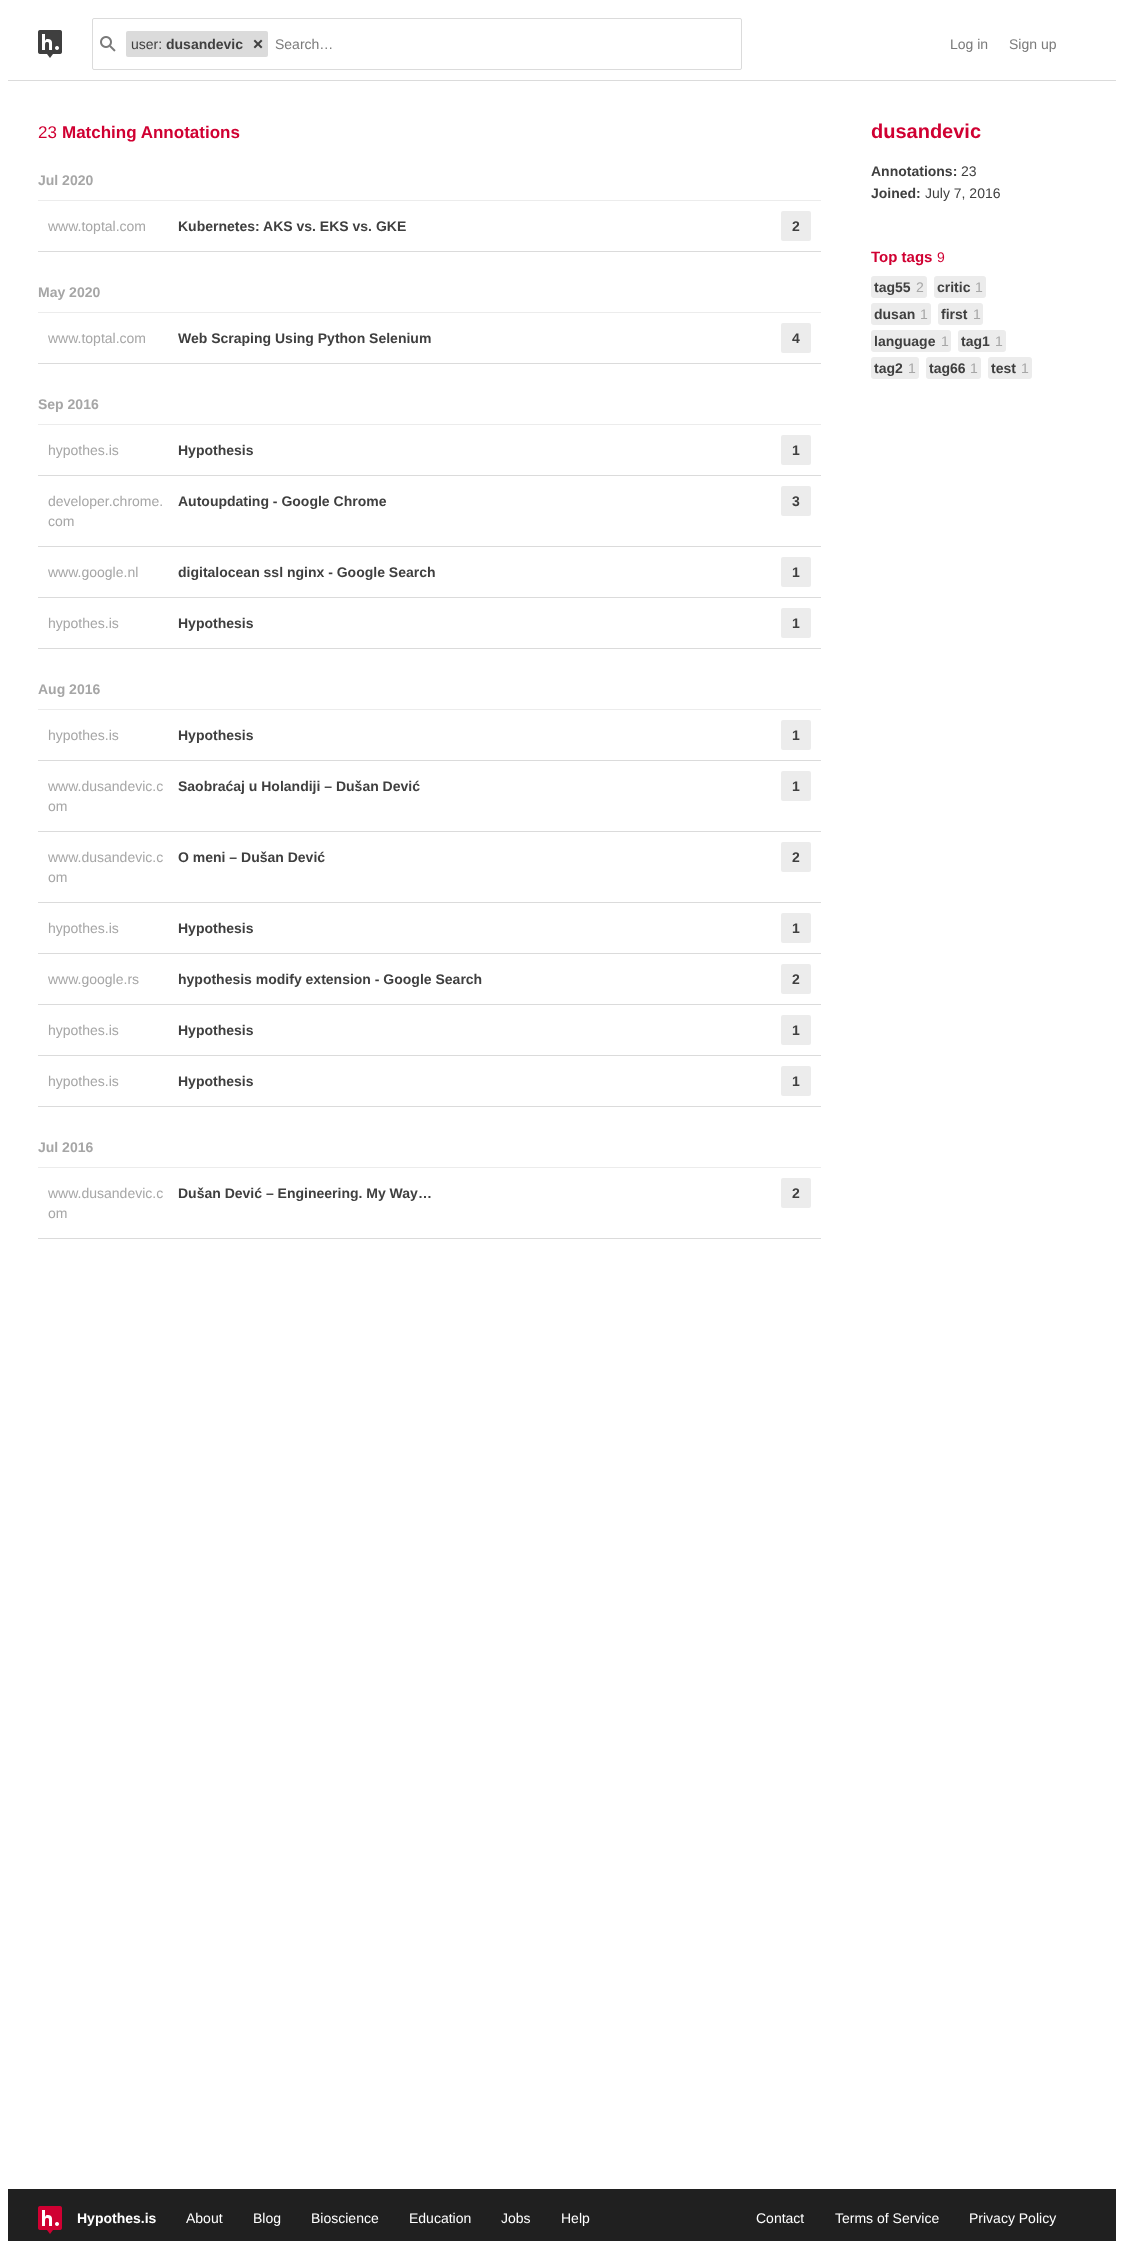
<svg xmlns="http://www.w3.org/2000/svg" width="1124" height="2241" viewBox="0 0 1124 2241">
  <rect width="100%" height="100%" fill="#fff"/>
  <path d="M8 80h1108v1H8z" fill="#dbdbdb"/>
  <image x="38" y="30" width="24" height="28" href="img/1.png"/>
  <rect x="92.5" y="18.5" width="649" height="51" rx="1.5" fill="none" stroke="#dbdbdb"/>
  <image x="100" y="36" width="16" height="16" href="img/2.png"/>
  <rect x="126" y="31" width="142" height="26" rx="2" fill="#dbdbdb"/>
  <image x="253" y="39" width="10" height="10" href="img/3.png"/>
  <path d="M38 200h783v1H38z" fill="#ececec"/>
  <path d="M38 251h783v1H38z" fill="#dbdbdb"/>
  <rect x="781" y="211" width="30" height="30" rx="2" fill="#ececec"/>
  <path d="M38 312h783v1H38z" fill="#ececec"/>
  <path d="M38 363h783v1H38z" fill="#dbdbdb"/>
  <rect x="781" y="323" width="30" height="30" rx="2" fill="#ececec"/>
  <path d="M38 424h783v1H38z" fill="#ececec"/>
  <path d="M38 475h783v1H38z" fill="#dbdbdb"/>
  <rect x="781" y="435" width="30" height="30" rx="2" fill="#ececec"/>
  <path d="M38 546h783v1H38z" fill="#dbdbdb"/>
  <rect x="781" y="486" width="30" height="30" rx="2" fill="#ececec"/>
  <path d="M38 597h783v1H38z" fill="#dbdbdb"/>
  <rect x="781" y="557" width="30" height="30" rx="2" fill="#ececec"/>
  <path d="M38 648h783v1H38z" fill="#dbdbdb"/>
  <rect x="781" y="608" width="30" height="30" rx="2" fill="#ececec"/>
  <path d="M38 709h783v1H38z" fill="#ececec"/>
  <path d="M38 760h783v1H38z" fill="#dbdbdb"/>
  <rect x="781" y="720" width="30" height="30" rx="2" fill="#ececec"/>
  <path d="M38 831h783v1H38z" fill="#dbdbdb"/>
  <rect x="781" y="771" width="30" height="30" rx="2" fill="#ececec"/>
  <path d="M38 902h783v1H38z" fill="#dbdbdb"/>
  <rect x="781" y="842" width="30" height="30" rx="2" fill="#ececec"/>
  <path d="M38 953h783v1H38z" fill="#dbdbdb"/>
  <rect x="781" y="913" width="30" height="30" rx="2" fill="#ececec"/>
  <path d="M38 1004h783v1H38z" fill="#dbdbdb"/>
  <rect x="781" y="964" width="30" height="30" rx="2" fill="#ececec"/>
  <path d="M38 1055h783v1H38z" fill="#dbdbdb"/>
  <rect x="781" y="1015" width="30" height="30" rx="2" fill="#ececec"/>
  <path d="M38 1106h783v1H38z" fill="#dbdbdb"/>
  <rect x="781" y="1066" width="30" height="30" rx="2" fill="#ececec"/>
  <path d="M38 1167h783v1H38z" fill="#ececec"/>
  <path d="M38 1238h783v1H38z" fill="#dbdbdb"/>
  <rect x="781" y="1178" width="30" height="30" rx="2" fill="#ececec"/>
  <rect x="871" y="276" width="56" height="22" rx="3" fill="#ececec"/>
  <rect x="934" y="276" width="52" height="22" rx="3" fill="#ececec"/>
  <rect x="871" y="303" width="60" height="22" rx="3" fill="#ececec"/>
  <rect x="938" y="303" width="45" height="22" rx="3" fill="#ececec"/>
  <rect x="871" y="330" width="80" height="22" rx="3" fill="#ececec"/>
  <rect x="958" y="330" width="48" height="22" rx="3" fill="#ececec"/>
  <rect x="871" y="357" width="48" height="22" rx="3" fill="#ececec"/>
  <rect x="926" y="357" width="55" height="22" rx="3" fill="#ececec"/>
  <rect x="988" y="357" width="44" height="22" rx="3" fill="#ececec"/>
  <path d="M8 2189h1108v52H8z" fill="#202020"/>
  <image x="38" y="2206" width="24" height="28" href="img/4.png"/>
  <text x="131" y="49" font-family="Liberation Sans" font-size="14" fill="#3f3f3f">user:</text>
  <text x="166" y="49" font-family="Liberation Sans" font-size="14" font-weight="bold" fill="#3f3f3f">dusandevic</text>
  <g font-family="Liberation Sans" font-size="14" fill="#7a7a7a">
    <text x="275" y="49">Search…</text>
    <text x="950" y="49">Log in</text>
    <text x="1009" y="49">Sign up</text>
  </g>
  <text x="38" y="138" font-family="Liberation Sans" font-size="17" fill="#d00032">23</text>
  <text x="62" y="138" font-family="Liberation Sans" font-size="17" font-weight="bold" fill="#d00032">Matching Annotations</text>
  <text x="38" y="185" font-family="Liberation Sans" font-size="14" font-weight="bold" fill="#a6a6a6">Jul 2020</text>
  <text x="48" y="231" font-family="Liberation Sans" font-size="14" fill="#a6a6a6">www.toptal.com</text>
  <g font-family="Liberation Sans" font-size="14" font-weight="bold" fill="#3f3f3f">
    <text x="178" y="231">Kubernetes: AKS vs. EKS vs. GKE</text>
    <text x="792" y="231">2</text>
  </g>
  <text x="38" y="297" font-family="Liberation Sans" font-size="14" font-weight="bold" fill="#a6a6a6">May 2020</text>
  <text x="48" y="343" font-family="Liberation Sans" font-size="14" fill="#a6a6a6">www.toptal.com</text>
  <g font-family="Liberation Sans" font-size="14" font-weight="bold" fill="#3f3f3f">
    <text x="178" y="343">Web Scraping Using Python Selenium</text>
    <text x="792" y="343">4</text>
  </g>
  <text x="38" y="409" font-family="Liberation Sans" font-size="14" font-weight="bold" fill="#a6a6a6">Sep 2016</text>
  <text x="48" y="455" font-family="Liberation Sans" font-size="14" fill="#a6a6a6">hypothes.is</text>
  <g font-family="Liberation Sans" font-size="14" font-weight="bold" fill="#3f3f3f">
    <text x="178" y="455">Hypothesis</text>
    <text x="792" y="455">1</text>
  </g>
  <g font-family="Liberation Sans" font-size="14" fill="#a6a6a6">
    <text x="48" y="506">developer.chrome.</text>
    <text x="48" y="526">com</text>
  </g>
  <g font-family="Liberation Sans" font-size="14" font-weight="bold" fill="#3f3f3f">
    <text x="178" y="506">Autoupdating - Google Chrome</text>
    <text x="792" y="506">3</text>
  </g>
  <text x="48" y="577" font-family="Liberation Sans" font-size="14" fill="#a6a6a6">www.google.nl</text>
  <g font-family="Liberation Sans" font-size="14" font-weight="bold" fill="#3f3f3f">
    <text x="178" y="577">digitalocean ssl nginx - Google Search</text>
    <text x="792" y="577">1</text>
  </g>
  <text x="48" y="628" font-family="Liberation Sans" font-size="14" fill="#a6a6a6">hypothes.is</text>
  <g font-family="Liberation Sans" font-size="14" font-weight="bold" fill="#3f3f3f">
    <text x="178" y="628">Hypothesis</text>
    <text x="792" y="628">1</text>
  </g>
  <text x="38" y="694" font-family="Liberation Sans" font-size="14" font-weight="bold" fill="#a6a6a6">Aug 2016</text>
  <text x="48" y="740" font-family="Liberation Sans" font-size="14" fill="#a6a6a6">hypothes.is</text>
  <g font-family="Liberation Sans" font-size="14" font-weight="bold" fill="#3f3f3f">
    <text x="178" y="740">Hypothesis</text>
    <text x="792" y="740">1</text>
  </g>
  <g font-family="Liberation Sans" font-size="14" fill="#a6a6a6">
    <text x="48" y="791">www.dusandevic.c</text>
    <text x="48" y="811">om</text>
  </g>
  <g font-family="Liberation Sans" font-size="14" font-weight="bold" fill="#3f3f3f">
    <text x="178" y="791">Saobraćaj u Holandiji – Dušan Dević</text>
    <text x="792" y="791">1</text>
  </g>
  <g font-family="Liberation Sans" font-size="14" fill="#a6a6a6">
    <text x="48" y="862">www.dusandevic.c</text>
    <text x="48" y="882">om</text>
  </g>
  <g font-family="Liberation Sans" font-size="14" font-weight="bold" fill="#3f3f3f">
    <text x="178" y="862">O meni – Dušan Dević</text>
    <text x="792" y="862">2</text>
  </g>
  <text x="48" y="933" font-family="Liberation Sans" font-size="14" fill="#a6a6a6">hypothes.is</text>
  <g font-family="Liberation Sans" font-size="14" font-weight="bold" fill="#3f3f3f">
    <text x="178" y="933">Hypothesis</text>
    <text x="792" y="933">1</text>
  </g>
  <text x="48" y="984" font-family="Liberation Sans" font-size="14" fill="#a6a6a6">www.google.rs</text>
  <g font-family="Liberation Sans" font-size="14" font-weight="bold" fill="#3f3f3f">
    <text x="178" y="984">hypothesis modify extension - Google Search</text>
    <text x="792" y="984">2</text>
  </g>
  <text x="48" y="1035" font-family="Liberation Sans" font-size="14" fill="#a6a6a6">hypothes.is</text>
  <g font-family="Liberation Sans" font-size="14" font-weight="bold" fill="#3f3f3f">
    <text x="178" y="1035">Hypothesis</text>
    <text x="792" y="1035">1</text>
  </g>
  <text x="48" y="1086" font-family="Liberation Sans" font-size="14" fill="#a6a6a6">hypothes.is</text>
  <g font-family="Liberation Sans" font-size="14" font-weight="bold" fill="#3f3f3f">
    <text x="178" y="1086">Hypothesis</text>
    <text x="792" y="1086">1</text>
  </g>
  <text x="38" y="1152" font-family="Liberation Sans" font-size="14" font-weight="bold" fill="#a6a6a6">Jul 2016</text>
  <g font-family="Liberation Sans" font-size="14" fill="#a6a6a6">
    <text x="48" y="1198">www.dusandevic.c</text>
    <text x="48" y="1218">om</text>
  </g>
  <g font-family="Liberation Sans" font-size="14" font-weight="bold" fill="#3f3f3f">
    <text x="178" y="1198">Dušan Dević – Engineering. My Way…</text>
    <text x="792" y="1198">2</text>
  </g>
  <text x="871" y="138" font-family="Liberation Sans" font-size="20" font-weight="bold" fill="#d00032">dusandevic</text>
  <text x="871" y="176" font-family="Liberation Sans" font-size="14" font-weight="bold" fill="#3f3f3f">Annotations:</text>
  <text x="961" y="176" font-family="Liberation Sans" font-size="14" fill="#3f3f3f">23</text>
  <text x="871" y="198" font-family="Liberation Sans" font-size="14" font-weight="bold" fill="#3f3f3f">Joined:</text>
  <text x="925" y="198" font-family="Liberation Sans" font-size="14" fill="#3f3f3f">July 7, 2016</text>
  <text x="871" y="262" font-family="Liberation Sans" font-size="15" font-weight="bold" fill="#d00032">Top tags</text>
  <text x="937" y="262" font-family="Liberation Sans" font-size="14" fill="#d00032">9</text>
  <text x="874" y="292" font-family="Liberation Sans" font-size="14" font-weight="bold" fill="#3f3f3f">tag55</text>
  <text x="916" y="292" font-family="Liberation Sans" font-size="14" fill="#a6a6a6">2</text>
  <text x="937" y="292" font-family="Liberation Sans" font-size="14" font-weight="bold" fill="#3f3f3f">critic</text>
  <text x="975" y="292" font-family="Liberation Sans" font-size="14" fill="#a6a6a6">1</text>
  <text x="874" y="319" font-family="Liberation Sans" font-size="14" font-weight="bold" fill="#3f3f3f">dusan</text>
  <text x="920" y="319" font-family="Liberation Sans" font-size="14" fill="#a6a6a6">1</text>
  <text x="941" y="319" font-family="Liberation Sans" font-size="14" font-weight="bold" fill="#3f3f3f">first</text>
  <text x="973" y="319" font-family="Liberation Sans" font-size="14" fill="#a6a6a6">1</text>
  <text x="874" y="346" font-family="Liberation Sans" font-size="14" font-weight="bold" fill="#3f3f3f">language</text>
  <text x="941" y="346" font-family="Liberation Sans" font-size="14" fill="#a6a6a6">1</text>
  <text x="961" y="346" font-family="Liberation Sans" font-size="14" font-weight="bold" fill="#3f3f3f">tag1</text>
  <text x="995" y="346" font-family="Liberation Sans" font-size="14" fill="#a6a6a6">1</text>
  <text x="874" y="373" font-family="Liberation Sans" font-size="14" font-weight="bold" fill="#3f3f3f">tag2</text>
  <text x="908" y="373" font-family="Liberation Sans" font-size="14" fill="#a6a6a6">1</text>
  <text x="929" y="373" font-family="Liberation Sans" font-size="14" font-weight="bold" fill="#3f3f3f">tag66</text>
  <text x="970" y="373" font-family="Liberation Sans" font-size="14" fill="#a6a6a6">1</text>
  <text x="991" y="373" font-family="Liberation Sans" font-size="14" font-weight="bold" fill="#3f3f3f">test</text>
  <text x="1021" y="373" font-family="Liberation Sans" font-size="14" fill="#a6a6a6">1</text>
  <text x="77" y="2223" font-family="Liberation Sans" font-size="14" font-weight="bold" fill="#fff">Hypothes.is</text>
  <g font-family="Liberation Sans" font-size="14" fill="#fff">
    <text x="186" y="2223">About</text>
    <text x="253" y="2223">Blog</text>
    <text x="311" y="2223">Bioscience</text>
    <text x="409" y="2223">Education</text>
    <text x="501" y="2223">Jobs</text>
    <text x="561" y="2223">Help</text>
    <text x="756" y="2223">Contact</text>
    <text x="835" y="2223">Terms of Service</text>
    <text x="969" y="2223">Privacy Policy</text>
  </g>
</svg>
